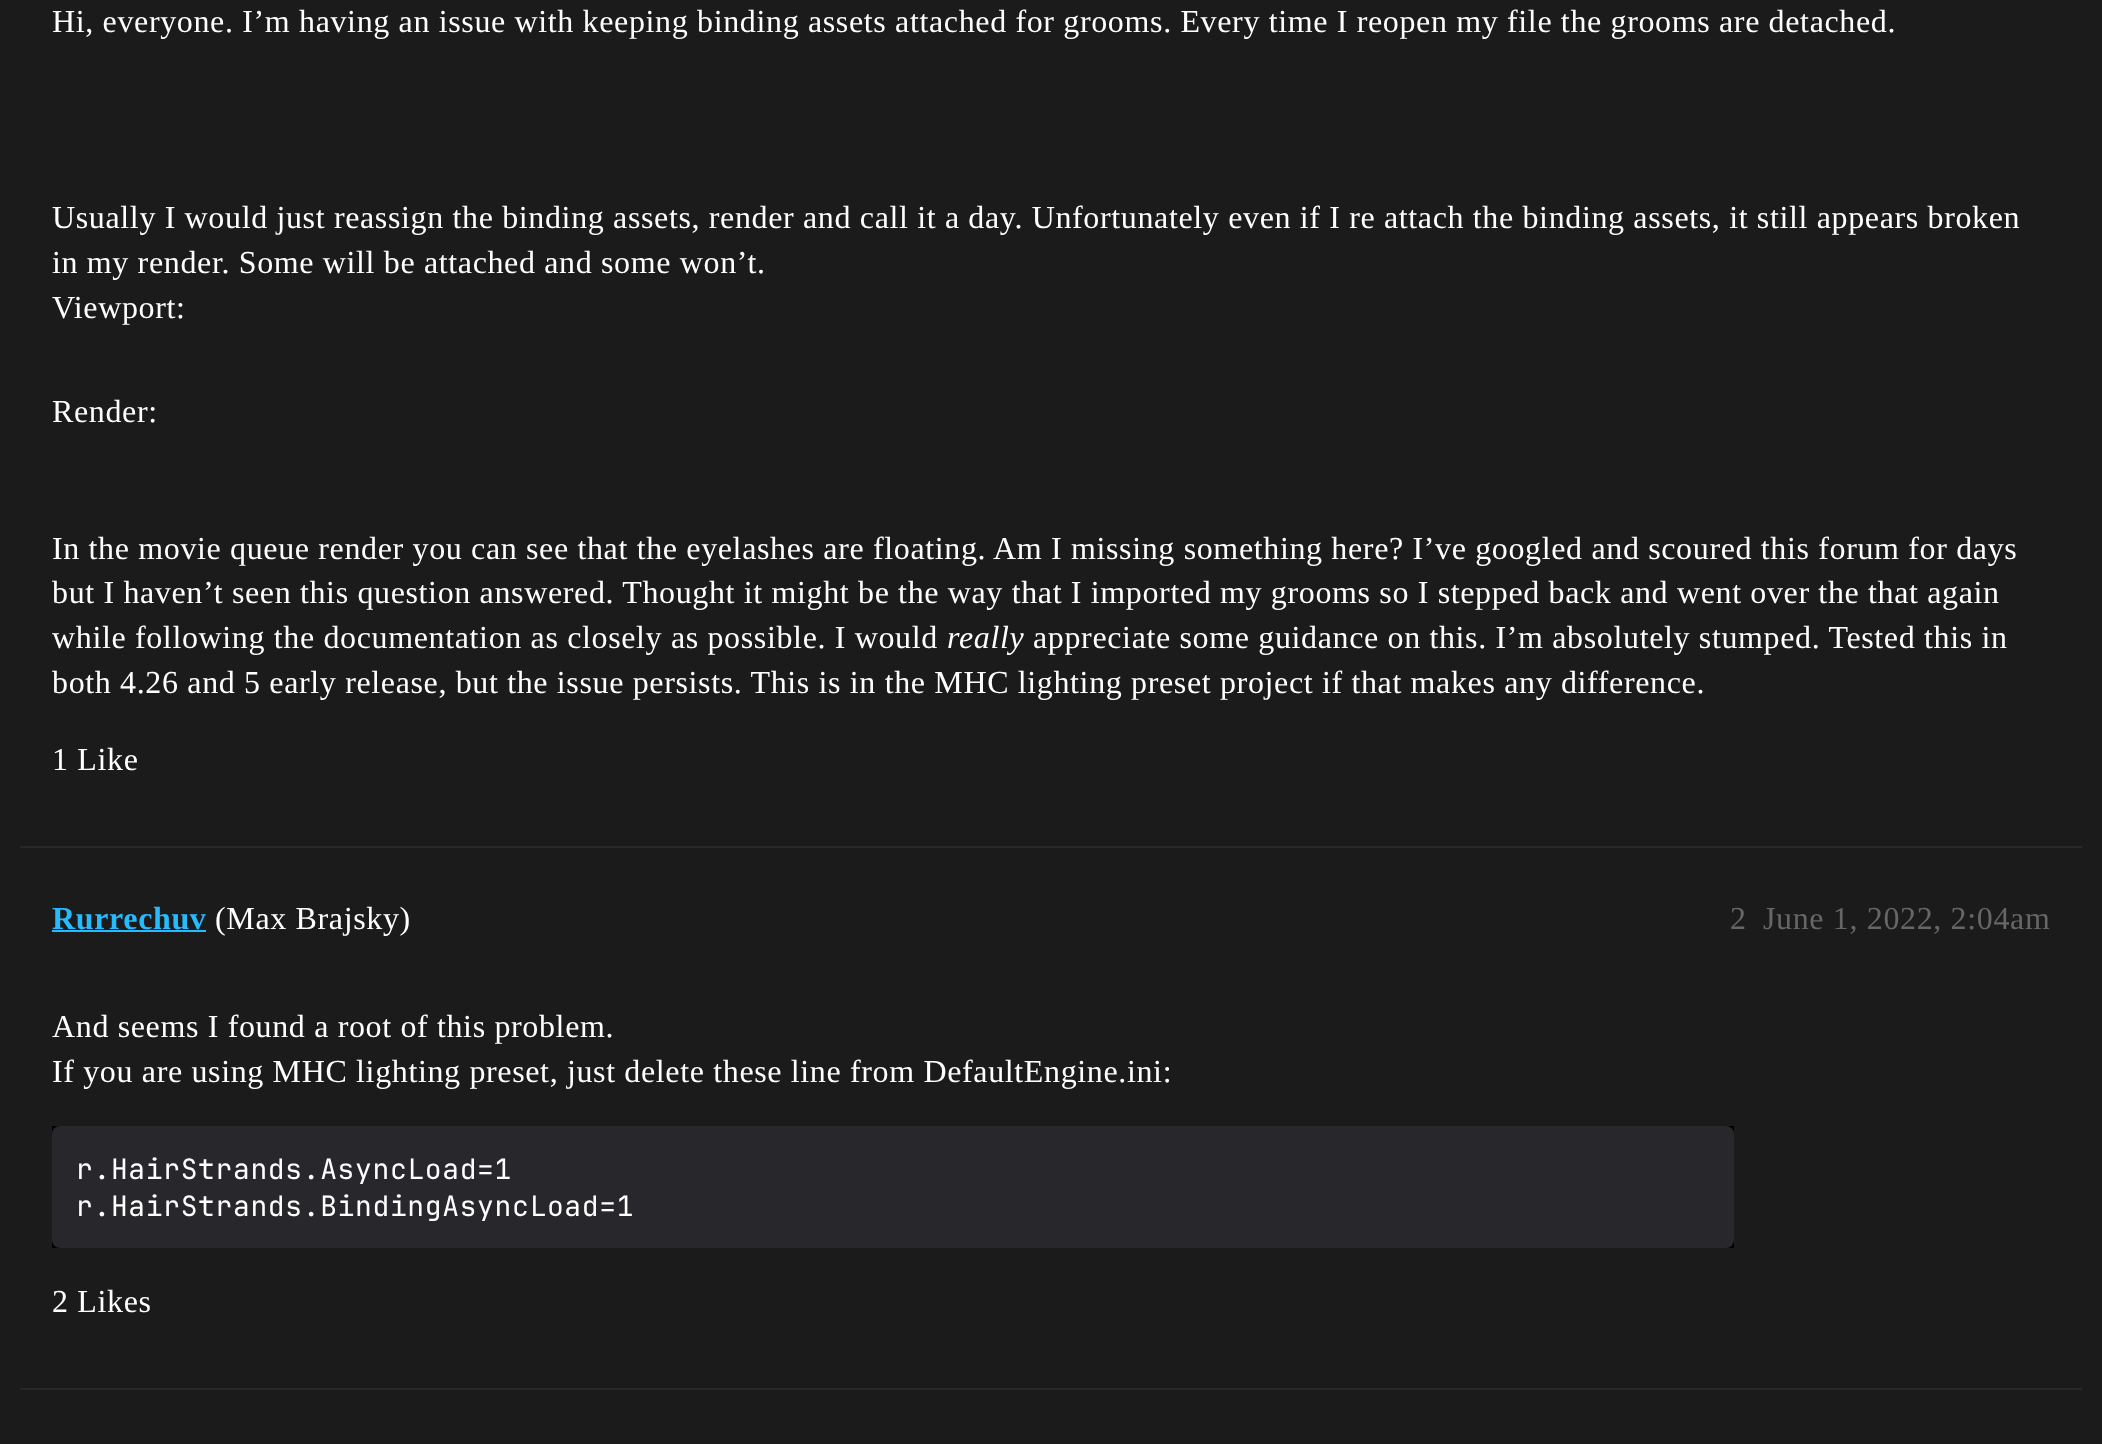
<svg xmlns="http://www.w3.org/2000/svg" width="2102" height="1444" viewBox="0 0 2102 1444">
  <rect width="100%" height="100%" fill="#1b1b1b"/>
  <path d="M20 846h2062v2H20z" fill="#28282c"/>
  <path d="M52 930h154v2H52z" fill="#26bbff"/>
  <path d="M52 1126h1682v122H52z" fill="#000"/>
  <rect x="52" y="1126" width="1682" height="122" rx="8" fill="#28282c"/>
  <path d="M20 1388h2062v2H20z" fill="#28282c"/>
  <g font-family="Liberation Serif" font-size="32" letter-spacing="0.64" fill="#fff">
    <text x="52" y="32">Hi, everyone. I’m having an issue with keeping binding assets attached for grooms. Every time I reopen my file the grooms are detached.</text>
    <text x="52" y="228">Usually I would just reassign the binding assets, render and call it a day. Unfortunately even if I re attach the binding assets, it still appears broken</text>
    <text x="52" y="273">in my render. Some will be attached and some won’t.</text>
    <text x="52" y="318">Viewport:</text>
    <text x="52" y="422">Render:</text>
    <text x="52" y="559">In the movie queue render you can see that the eyelashes are floating. Am I missing something here? I’ve googled and scoured this forum for days</text>
    <text x="52" y="603">but I haven’t seen this question answered. Thought it might be the way that I imported my grooms so I stepped back and went over the that again</text>
    <text x="52" y="648">while following the documentation as closely as possible. I would</text>
  </g>
  <text x="947" y="648" font-family="Liberation Serif" font-size="32" font-style="italic" letter-spacing="0.64" fill="#fff">really</text>
  <g font-family="Liberation Serif" font-size="32" letter-spacing="0.64" fill="#fff">
    <text x="1033" y="648">appreciate some guidance on this. I’m absolutely stumped. Tested this in</text>
    <text x="52" y="693">both 4.26 and 5 early release, but the issue persists. This is in the MHC lighting preset project if that makes any difference.</text>
    <text x="52" y="770">1 Like</text>
  </g>
  <text x="52" y="929" font-family="Liberation Serif" font-size="32" font-weight="bold" letter-spacing="0.64" fill="#26bbff">Rurrechuv</text>
  <text x="215" y="929" font-family="Liberation Serif" font-size="32" letter-spacing="0.64" fill="#fff">(Max Brajsky)</text>
  <g font-family="Liberation Serif" font-size="32" letter-spacing="0.64" fill="#666">
    <text x="1730" y="929">2</text>
    <text x="1763" y="929">June 1, 2022, 2:04am</text>
  </g>
  <g font-family="Liberation Serif" font-size="32" letter-spacing="0.64" fill="#fff">
    <text x="52" y="1037">And seems I found a root of this problem.</text>
    <text x="52" y="1082">If you are using MHC lighting preset, just delete these line from DefaultEngine.ini:</text>
  </g>
  <g font-family="JetBrains Mono" font-size="28" letter-spacing="0.64" fill="#fff">
    <text x="76" y="1179">r.HairStrands.AsyncLoad=1</text>
    <text x="76" y="1216">r.HairStrands.BindingAsyncLoad=1</text>
  </g>
  <text x="52" y="1312" font-family="Liberation Serif" font-size="32" letter-spacing="0.64" fill="#fff">2 Likes</text>
</svg>
